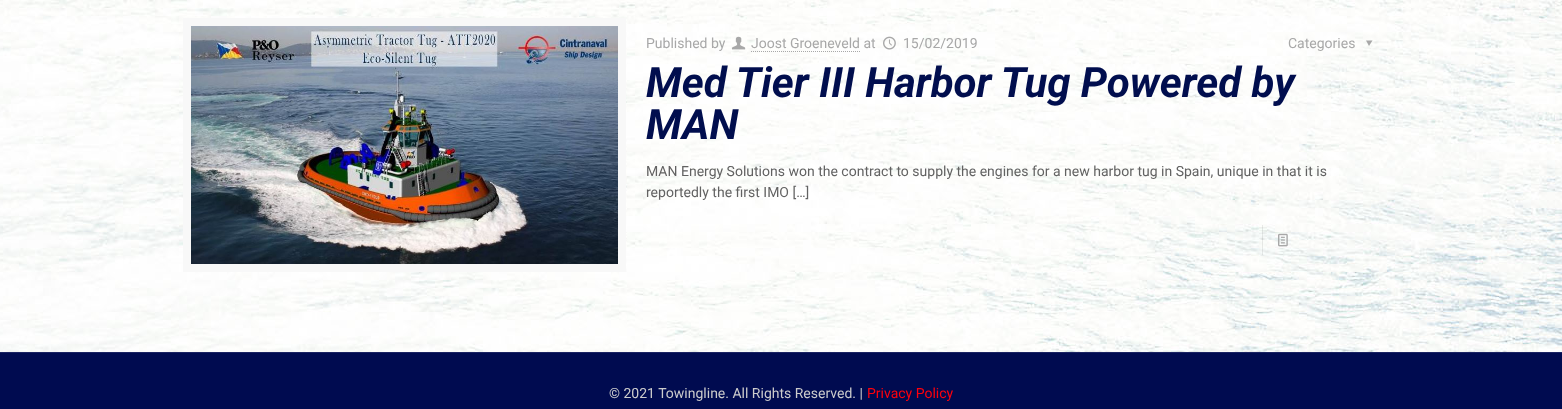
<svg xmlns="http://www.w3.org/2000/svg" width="1562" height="409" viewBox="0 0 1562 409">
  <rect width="100%" height="100%" fill="#fff"/>
  <image x="0" y="0" width="1562" height="352" href="img/1.png"/>
  <path d="M187 22h435v246H187z" fill="none" stroke="#f8f8f8" stroke-width="8"/>
  <image x="191" y="26" width="427" height="238" href="img/2.png"/>
  <image x="732" y="36" width="14" height="14" href="img/3.png"/>
  <path d="M751 51.5H860" fill="none" stroke="#a8a8a8" stroke-dasharray="1 1"/>
  <image x="883" y="36" width="13" height="14" href="img/4.png"/>
  <path d="M1372.5 40.5L1369 46L1366 40.5Z" fill="#a8a8a8"/>
  <path d="M1262 225h1v30H1262z" fill="#00000014"/>
  <image x="1278" y="233" width="10" height="14" href="img/5.png"/>
  <path d="M0 353h1562v56H0z" fill="#000b50"/>
  <path d="M0 352h1562v1H0z" fill="#1a2362"/>
  <g font-family="Roboto" font-size="14" fill="#a8a8a8">
    <text x="646" y="48">Published by</text>
    <text x="751" y="48">Joost Groeneveld at</text>
    <text x="903" y="48">15/02/2019</text>
    <text x="1288" y="48">Categories</text>
  </g>
  <g font-family="Roboto" font-size="42" font-weight="bold" font-style="italic" fill="#010e4e">
    <text x="646" y="97">Med Tier III Harbor Tug Powered by</text>
    <text x="646" y="139">MAN</text>
  </g>
  <g font-family="Roboto" font-size="14" fill="#626262">
    <text x="646" y="176">MAN Energy Solutions won the contract to supply the engines for a new harbor tug in Spain, unique in that it is</text>
    <text x="646" y="197">reportedly the first IMO […]</text>
  </g>
  <text x="609" y="398" font-family="Roboto" font-size="14" fill="#ccc">© 2021 Towingline. All Rights Reserved. |</text>
  <text x="867" y="398" font-family="Roboto" font-size="14" fill="#ff000c">Privacy Policy</text>
</svg>
